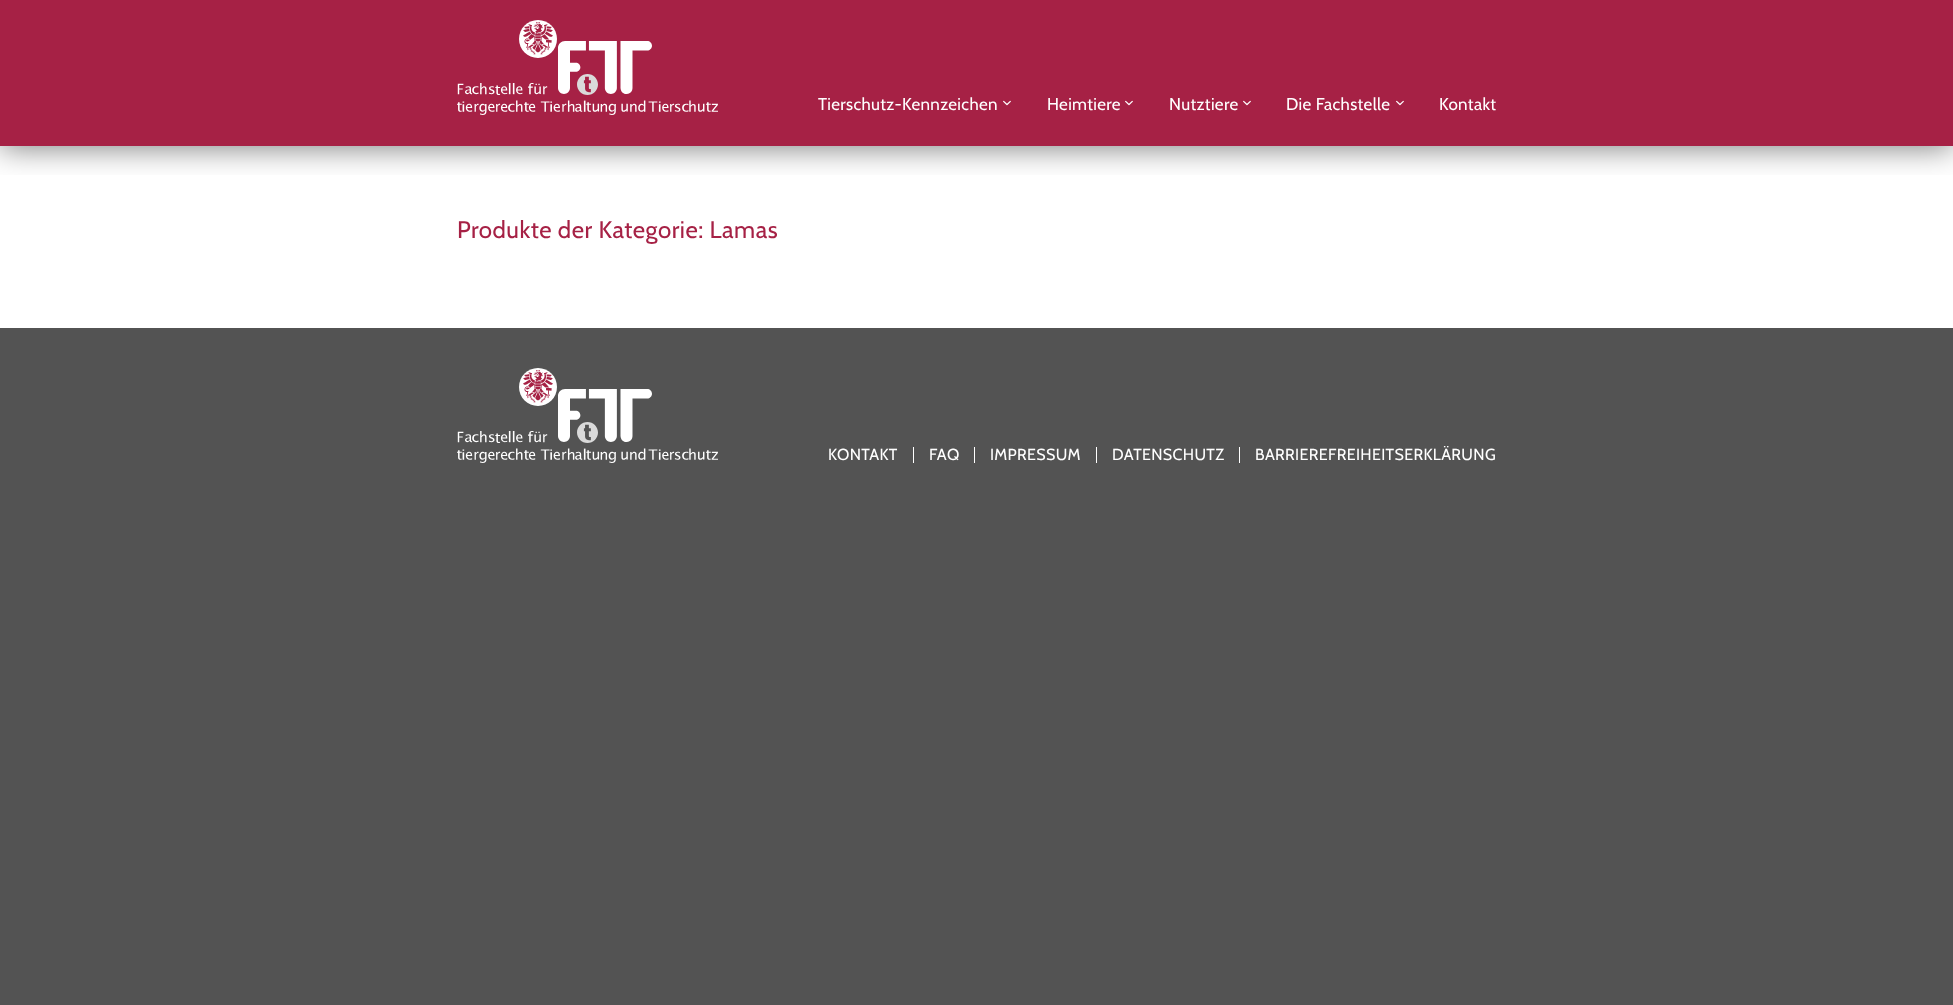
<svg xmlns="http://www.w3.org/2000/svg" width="1953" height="1005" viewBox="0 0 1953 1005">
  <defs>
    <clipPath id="clip1"><path d="M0 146h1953v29H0z"/></clipPath>
  </defs>
  <rect width="100%" height="100%" fill="#535353"/>
  <path d="M0 0h1953v146H0z" fill="#a62145"/>
  <path d="M0 146h1953v182H0z" fill="#fff"/>
  <g clip-path="url(#clip1)">
    <path d="M0 2h1953v146H0z" fill="#00000080" filter="blur(15.5px)"/>
  </g>
  <image x="457" y="20" width="261" height="95" href="img/1.png"/>
  <image x="1003" y="100" width="8" height="6" href="img/2.png"/>
  <image x="1125" y="100" width="8" height="6" href="img/2.png"/>
  <image x="1243" y="100" width="8" height="6" href="img/2.png"/>
  <image x="1396" y="100" width="8" height="6" href="img/2.png"/>
  <image x="457" y="368" width="261" height="95" href="img/3.png"/>
  <path d="M913 447h1v16H913z" fill="#fff"/>
  <path d="M974 447h1v16H974z" fill="#fff"/>
  <path d="M1096 447h1v16H1096z" fill="#fff"/>
  <path d="M1239 447h1v16H1239z" fill="#fff"/>
  <g font-family="Cabin" font-size="17" letter-spacing="0.35" fill="#fff">
    <text x="818" y="110">Tierschutz-Kennzeichen</text>
    <text x="1047" y="110">Heimtiere</text>
    <text x="1169" y="110">Nutztiere</text>
    <text x="1286" y="110">Die Fachstelle</text>
    <text x="1439" y="110">Kontakt</text>
  </g>
  <text x="457" y="238" font-family="Cabin" font-size="24" letter-spacing="0.5" fill="#a62145">Produkte der Kategorie: Lamas</text>
  <g font-family="Cabin" font-size="16" letter-spacing="0.35" fill="#fff">
    <text x="828" y="460">KONTAKT</text>
    <text x="929" y="460">FAQ</text>
    <text x="990" y="460">IMPRESSUM</text>
    <text x="1112" y="460">DATENSCHUTZ</text>
    <text x="1255" y="460">BARRIEREFREIHEITSERKLÄRUNG</text>
  </g>
</svg>
